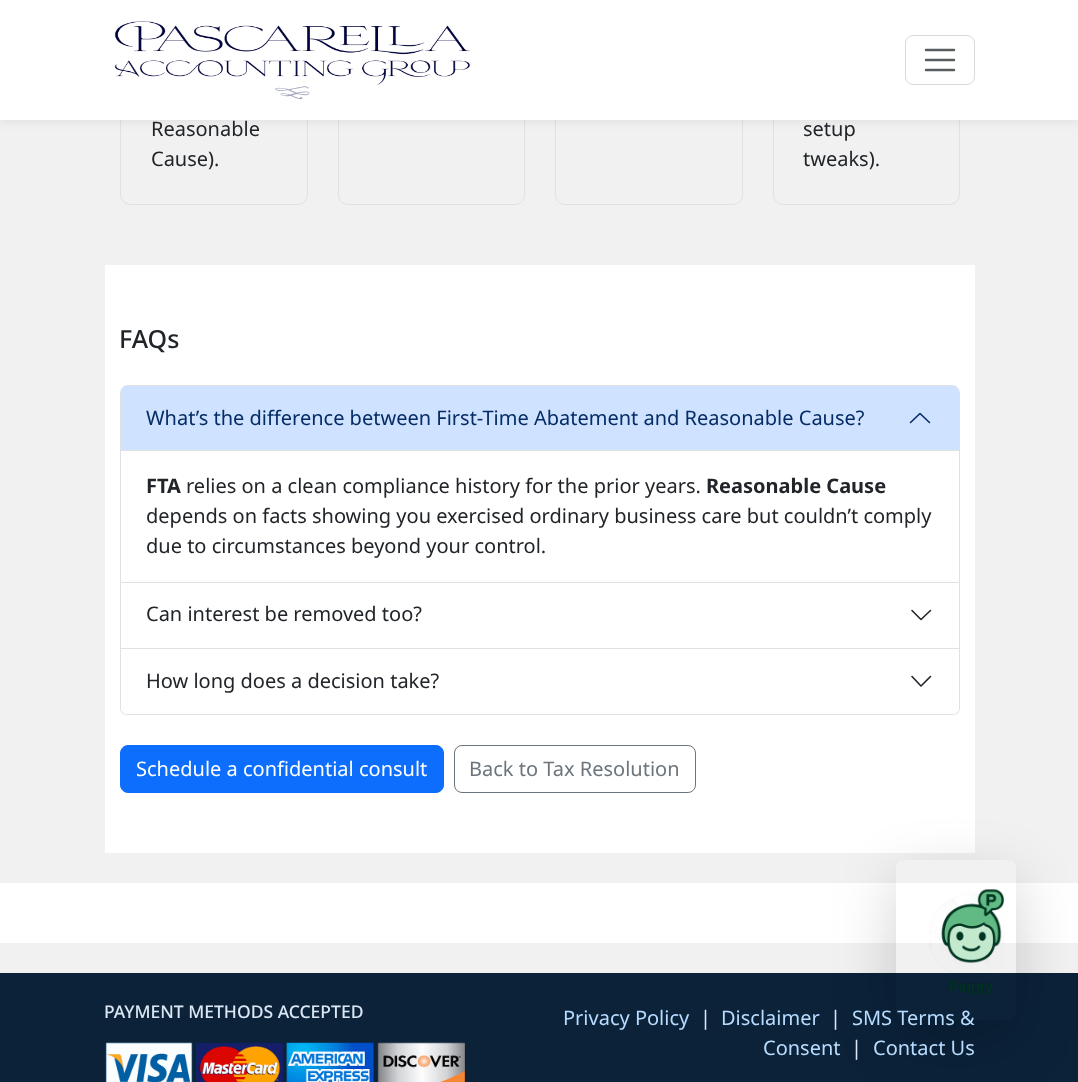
<svg xmlns="http://www.w3.org/2000/svg" width="1078" height="1082" viewBox="0 0 1078 1082">
  <defs>
    <clipPath id="clip1"><path d="M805 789H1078V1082H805ZM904 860H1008C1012.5 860 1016 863.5 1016 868V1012C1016 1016.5 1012.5 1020 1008 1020H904C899.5 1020 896 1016.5 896 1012V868C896 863.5 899.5 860 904 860Z" clip-rule="evenodd"/></clipPath>
  </defs>
  <rect width="100%" height="100%" fill="#f1f1f1"/>
  <rect x="120.5" y="-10.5" width="187" height="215" rx="9.5" fill="none" stroke="#dee2e6"/>
  <rect x="338.5" y="-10.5" width="186" height="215" rx="9.5" fill="none" stroke="#dee2e6"/>
  <rect x="555.5" y="-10.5" width="187" height="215" rx="9.5" fill="none" stroke="#dee2e6"/>
  <rect x="773.5" y="-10.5" width="186" height="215" rx="9.5" fill="none" stroke="#dee2e6"/>
  <path d="M0 3h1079v120H0z" fill="#0000000f" filter="blur(5px)"/>
  <path d="M0 0h1078v120H0z" fill="#fff"/>
  <image x="114" y="21" width="356" height="79" href="img/1.png"/>
  <rect x="905.5" y="35.5" width="69" height="49" rx="7.5" fill="none" stroke="#d9d9d9"/>
  <path d="M926 50H954M926 60H954M926 70H954" fill="none" stroke="#595c5f" stroke-width="2.5" stroke-linecap="round"/>
  <path d="M105 265h870v588H105z" fill="#fff"/>
  <path d="M128 385.5H952C956 385.5 959.5 389 959.5 393V582.5H120.5V393C120.5 389 124 385.5 128 385.5Z" fill="none" stroke="#dee2e6"/>
  <path d="M127 386H953C956.5 386 959 388.5 959 392V451H121V392C121 388.5 123.5 386 127 386Z" fill="#cfe2ff"/>
  <path d="M121 450h838v1H121z" fill="#dee2e6"/>
  <path d="M929.5 422.5L920 413.5L910.5 422.5" fill="none" stroke="#052c65" stroke-width="1.6" stroke-linecap="round" stroke-linejoin="round"/>
  <path d="M959 583h1v66H959z" fill="#dee2e6"/>
  <path d="M120 648h840v1H120z" fill="#dee2e6"/>
  <path d="M120 583h1v66H120z" fill="#dee2e6"/>
  <path d="M912 610.5L921 619.5L930.5 610.5" fill="none" stroke="#212529" stroke-width="1.6" stroke-linecap="round" stroke-linejoin="round"/>
  <path d="M120 649H960V708C960 712 957 715 952 715H128C123 715 120 712 120 708ZM121 649H959V708C959 711 956 714 952 714H128C124 714 121 711 121 708Z" fill="#dee2e6" fill-rule="evenodd"/>
  <path d="M121 649H959V708C959 711.5 956.5 714 953 714H127C123.5 714 121 711.5 121 708Z" fill="#fff"/>
  <path d="M912 676.5L921 686L930.5 676.5" fill="none" stroke="#212529" stroke-width="1.6" stroke-linecap="round" stroke-linejoin="round"/>
  <rect x="120.5" y="745.5" width="323" height="47" rx="7.5" fill="#0d6efd" stroke="#0d6efd"/>
  <rect x="454.5" y="745.5" width="241" height="47" rx="7.5" fill="none" stroke="#6c757d"/>
  <path d="M0 883h1078v60H0z" fill="#fff"/>
  <path d="M0 973h1078v109H0z" fill="#0b2239"/>
  <g clip-path="url(#clip1)">
    <rect x="896" y="880" width="120" height="160" rx="8" fill="#0000002e" filter="blur(30px)"/>
  </g>
  <image x="929" y="889" width="76" height="106" href="img/2.png"/>
  <image x="105" y="1042" width="360" height="40" href="img/3.png"/>
  <g font-family="Noto Sans" font-size="20" fill="#212529">
    <text x="151" y="136">Reasonable</text>
    <text x="151" y="166">Cause).</text>
    <text x="803" y="136">setup</text>
    <text x="803" y="166">tweaks).</text>
  </g>
  <text x="119" y="348" font-family="Noto Sans" font-size="25" font-weight="500" fill="#212529">FAQs</text>
  <text x="146" y="425" font-family="Noto Sans" font-size="20" fill="#052c65">What’s the difference between First-Time Abatement and Reasonable Cause?</text>
  <text x="146" y="493" font-family="Noto Sans" font-size="20" font-weight="bold" fill="#212529">FTA</text>
  <text x="186" y="493" font-family="Noto Sans" font-size="20" fill="#212529">relies on a clean compliance history for the prior years.</text>
  <text x="706" y="493" font-family="Noto Sans" font-size="20" font-weight="bold" fill="#212529">Reasonable Cause</text>
  <g font-family="Noto Sans" font-size="20" fill="#212529">
    <text x="146" y="523">depends on facts showing you exercised ordinary business care but couldn’t comply</text>
    <text x="146" y="553">due to circumstances beyond your control.</text>
    <text x="146" y="621">Can interest be removed too?</text>
    <text x="146" y="688">How long does a decision take?</text>
  </g>
  <text x="136" y="776" font-family="Noto Sans" font-size="20" fill="#fff">Schedule a confidential consult</text>
  <text x="469" y="776" font-family="Noto Sans" font-size="20" fill="#6c757d">Back to Tax Resolution</text>
  <text x="104" y="1018" font-family="Noto Sans" font-size="17.5" font-weight="500" fill="#dbe7f4">PAYMENT METHODS ACCEPTED</text>
  <text x="563" y="1025" font-family="Noto Sans" font-size="20" fill="#b8dcff">Privacy Policy</text>
  <text x="700" y="1025" font-family="Noto Sans" font-size="20" fill="#dbe7f4">|</text>
  <text x="721" y="1025" font-family="Noto Sans" font-size="20" fill="#b8dcff">Disclaimer</text>
  <text x="830" y="1025" font-family="Noto Sans" font-size="20" fill="#dbe7f4">|</text>
  <g font-family="Noto Sans" font-size="20" fill="#b8dcff">
    <text x="852" y="1025">SMS Terms &amp;</text>
    <text x="763" y="1055">Consent</text>
  </g>
  <text x="851" y="1055" font-family="Noto Sans" font-size="20" fill="#dbe7f4">|</text>
  <text x="873" y="1055" font-family="Noto Sans" font-size="20" fill="#b8dcff">Contact Us</text>
</svg>
